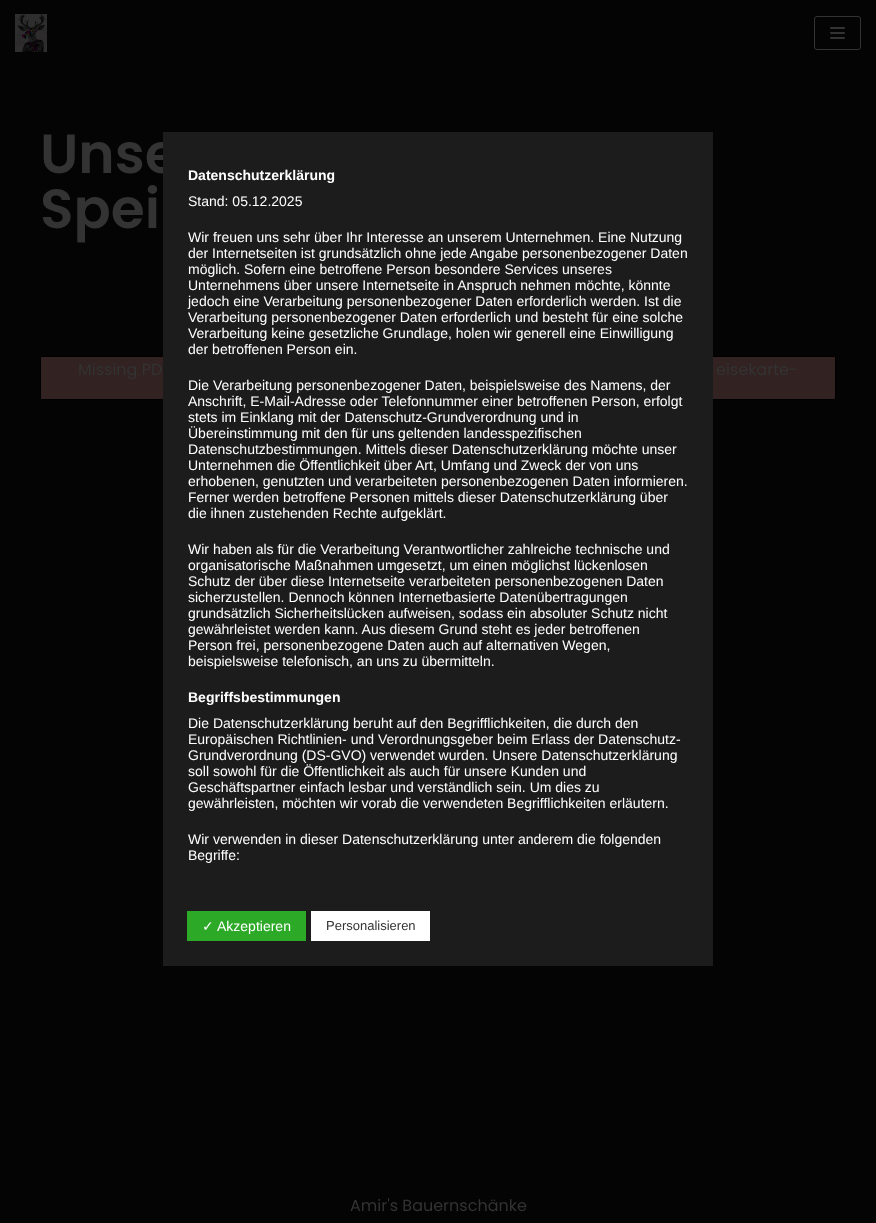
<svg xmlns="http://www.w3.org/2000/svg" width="876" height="1223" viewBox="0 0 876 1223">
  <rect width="100%" height="100%" fill="#040404"/>
  <image x="15" y="14" width="32" height="38" href="img/1.png"/>
  <rect x="814.5" y="16.5" width="46" height="33" rx="2.5" fill="none" stroke="#333"/>
  <rect x="830" y="27" width="15" height="2" rx="1" fill="#333"/>
  <rect x="830" y="32" width="15" height="2" rx="1" fill="#333"/>
  <rect x="830" y="37" width="15" height="2" rx="1" fill="#333"/>
  <path d="M40.5 356.5h795v43H40.5z" fill="none" stroke="#000"/>
  <path d="M41 357h794v42H41z" fill="#322"/>
  <g font-family="Poppins" font-size="55" font-weight="600" fill="#333">
    <text x="40" y="173">Unse</text>
    <text x="40" y="228">Spei</text>
  </g>
  <g font-family="Poppins" font-size="16" fill="#333">
    <text x="78" y="375">Missing PD</text>
    <text x="716" y="375">eisekarte-</text>
    <text x="350" y="1211">Amir's Bauernschänke</text>
  </g>
  <path d="M163 132h550v834H163z" fill="#1d1c1c"/>
  <text x="188" y="180" font-family="Liberation Sans" font-size="14" font-weight="bold" fill="#fff">Datenschutzerklärung</text>
  <g font-family="Liberation Sans" font-size="14" fill="#fff">
    <text x="188" y="206">Stand: 05.12.2025</text>
    <text x="188" y="242">Wir freuen uns sehr über Ihr Interesse an unserem Unternehmen. Eine Nutzung</text>
    <text x="188" y="258">der Internetseiten ist grundsätzlich ohne jede Angabe personenbezogener Daten</text>
    <text x="188" y="274">möglich. Sofern eine betroffene Person besondere Services unseres</text>
    <text x="188" y="290">Unternehmens über unsere Internetseite in Anspruch nehmen möchte, könnte</text>
    <text x="188" y="306">jedoch eine Verarbeitung personenbezogener Daten erforderlich werden. Ist die</text>
    <text x="188" y="322">Verarbeitung personenbezogener Daten erforderlich und besteht für eine solche</text>
    <text x="188" y="338">Verarbeitung keine gesetzliche Grundlage, holen wir generell eine Einwilligung</text>
    <text x="188" y="354">der betroffenen Person ein.</text>
    <text x="188" y="390">Die Verarbeitung personenbezogener Daten, beispielsweise des Namens, der</text>
    <text x="188" y="406">Anschrift, E-Mail-Adresse oder Telefonnummer einer betroffenen Person, erfolgt</text>
    <text x="188" y="422">stets im Einklang mit der Datenschutz-Grundverordnung und in</text>
    <text x="188" y="438">Übereinstimmung mit den für uns geltenden landesspezifischen</text>
    <text x="188" y="454">Datenschutzbestimmungen. Mittels dieser Datenschutzerklärung möchte unser</text>
    <text x="188" y="470">Unternehmen die Öffentlichkeit über Art, Umfang und Zweck der von uns</text>
    <text x="188" y="486">erhobenen, genutzten und verarbeiteten personenbezogenen Daten informieren.</text>
    <text x="188" y="502">Ferner werden betroffene Personen mittels dieser Datenschutzerklärung über</text>
    <text x="188" y="518">die ihnen zustehenden Rechte aufgeklärt.</text>
    <text x="188" y="554">Wir haben als für die Verarbeitung Verantwortlicher zahlreiche technische und</text>
    <text x="188" y="570">organisatorische Maßnahmen umgesetzt, um einen möglichst lückenlosen</text>
    <text x="188" y="586">Schutz der über diese Internetseite verarbeiteten personenbezogenen Daten</text>
    <text x="188" y="602">sicherzustellen. Dennoch können Internetbasierte Datenübertragungen</text>
    <text x="188" y="618">grundsätzlich Sicherheitslücken aufweisen, sodass ein absoluter Schutz nicht</text>
    <text x="188" y="634">gewährleistet werden kann. Aus diesem Grund steht es jeder betroffenen</text>
    <text x="188" y="650">Person frei, personenbezogene Daten auch auf alternativen Wegen,</text>
    <text x="188" y="666">beispielsweise telefonisch, an uns zu übermitteln.</text>
  </g>
  <text x="188" y="702" font-family="Liberation Sans" font-size="14" font-weight="bold" fill="#fff">Begriffsbestimmungen</text>
  <g font-family="Liberation Sans" font-size="14" fill="#fff">
    <text x="188" y="728">Die Datenschutzerklärung beruht auf den Begrifflichkeiten, die durch den</text>
    <text x="188" y="744">Europäischen Richtlinien- und Verordnungsgeber beim Erlass der Datenschutz-</text>
    <text x="188" y="760">Grundverordnung (DS-GVO) verwendet wurden. Unsere Datenschutzerklärung</text>
    <text x="188" y="776">soll sowohl für die Öffentlichkeit als auch für unsere Kunden und</text>
    <text x="188" y="792">Geschäftspartner einfach lesbar und verständlich sein. Um dies zu</text>
    <text x="188" y="808">gewährleisten, möchten wir vorab die verwendeten Begrifflichkeiten erläutern.</text>
    <text x="188" y="844">Wir verwenden in dieser Datenschutzerklärung unter anderem die folgenden</text>
    <text x="188" y="860">Begriffe:</text>
  </g>
  <path d="M187 911h119v30H187z" fill="#2caa27"/>
  <text x="202" y="931" font-family="DejaVu Sans" font-size="14" fill="#fff">✓</text>
  <text x="217" y="931" font-family="Liberation Sans" font-size="14" fill="#fff">Akzeptieren</text>
  <path d="M311 911h119v30H311z" fill="#fff"/>
  <text x="326" y="930" font-family="Liberation Sans" font-size="13" fill="#333">Personalisieren</text>
</svg>
